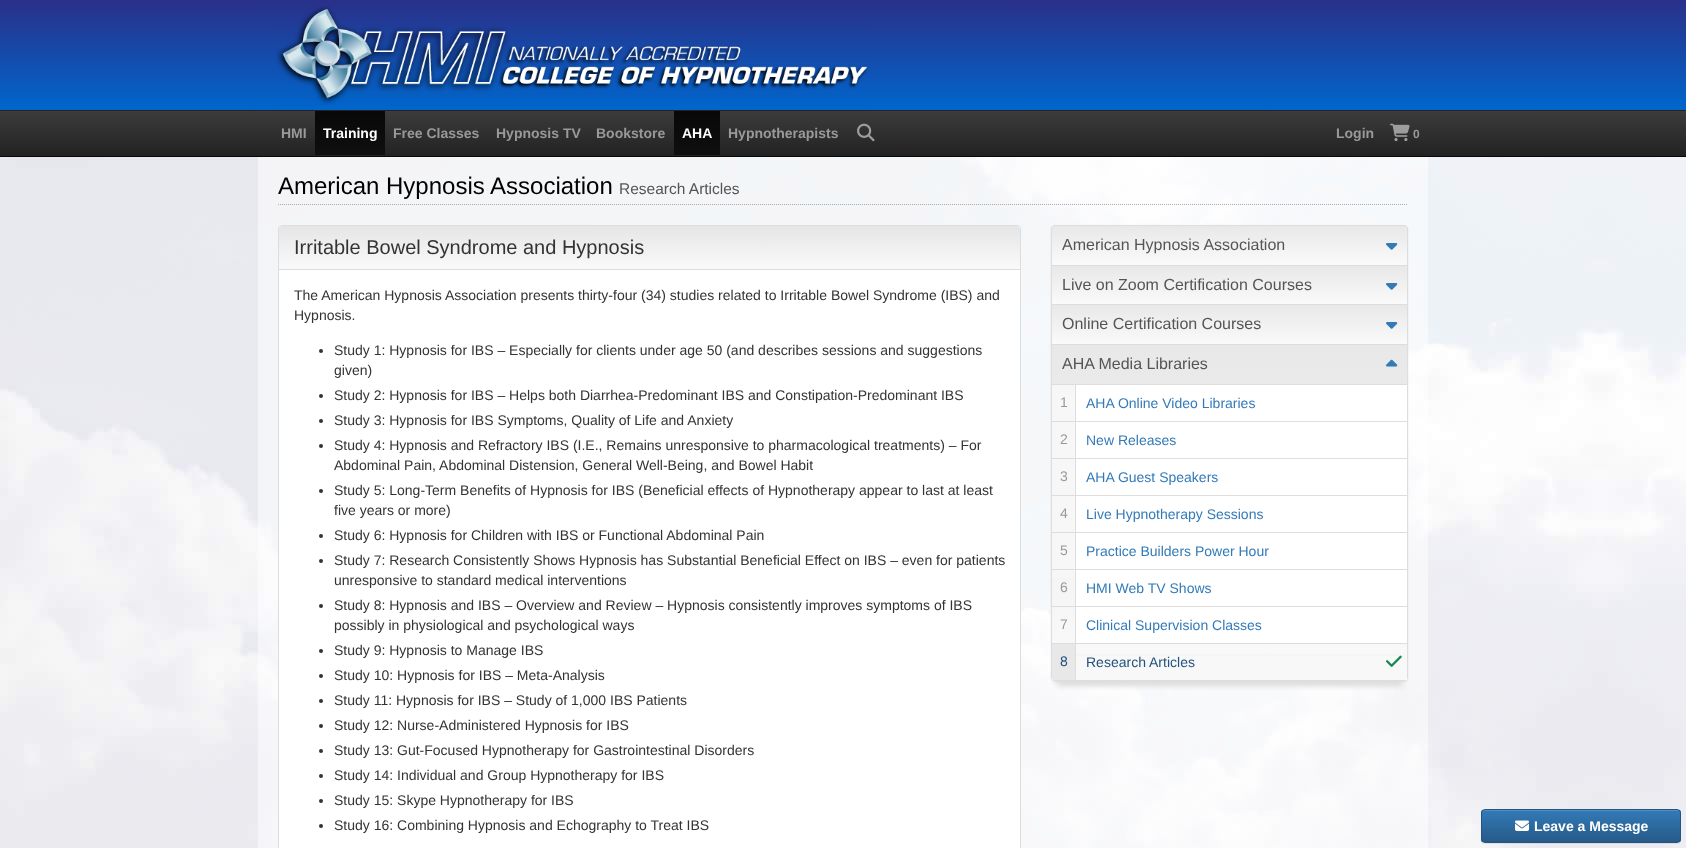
<svg xmlns="http://www.w3.org/2000/svg" width="1686" height="848" viewBox="0 0 1686 848">
  <defs>
    <linearGradient id="g1" gradientUnits="userSpaceOnUse" x1="843" y1="0" x2="843" y2="110"><stop offset="0" stop-color="#2a3089"/><stop offset="1" stop-color="#06c"/></linearGradient>
    <linearGradient id="g2" gradientUnits="userSpaceOnUse" x1="843" y1="111" x2="843" y2="156"><stop offset="0" stop-color="#3c3c3c"/><stop offset="1" stop-color="#222"/></linearGradient>
    <linearGradient id="g3" gradientUnits="userSpaceOnUse" x1="350" y1="111" x2="350" y2="155"><stop offset="0" stop-color="#080808"/><stop offset="1" stop-color="#0f0f0f"/></linearGradient>
    <linearGradient id="g4" gradientUnits="userSpaceOnUse" x1="697" y1="111" x2="697" y2="155"><stop offset="0" stop-color="#080808"/><stop offset="1" stop-color="#0f0f0f"/></linearGradient>
    <linearGradient id="g5" gradientUnits="userSpaceOnUse" x1="650" y1="226" x2="650" y2="269"><stop offset="0" stop-color="#e5e5e5"/><stop offset="1" stop-color="#fafafa"/></linearGradient>
    <clipPath id="clip1"><path d="M1055 225H1404C1406 225 1408 227 1408 229V266H1051V229C1051 227 1053 225 1055 225Z"/></clipPath>
    <linearGradient id="g6" gradientUnits="userSpaceOnUse" x1="1230" y1="226" x2="1230" y2="265"><stop offset="0" stop-color="#e8e8e8"/><stop offset="1" stop-color="#fafafa"/></linearGradient>
    <linearGradient id="g7" gradientUnits="userSpaceOnUse" x1="1230" y1="266" x2="1230" y2="304"><stop offset="0" stop-color="#e8e8e8"/><stop offset="1" stop-color="#fafafa"/></linearGradient>
    <linearGradient id="g8" gradientUnits="userSpaceOnUse" x1="1230" y1="305" x2="1230" y2="344"><stop offset="0" stop-color="#e8e8e8"/><stop offset="1" stop-color="#fafafa"/></linearGradient>
    <clipPath id="clip2"><path d="M1051 344H1408V677C1408 679 1406 681 1404 681H1055C1053 681 1051 679 1051 677Z"/></clipPath>
    <linearGradient id="g9" gradientUnits="userSpaceOnUse" x1="1230" y1="345" x2="1230" y2="680"><stop offset="0" stop-color="#e8e8e8"/><stop offset="1" stop-color="#fafafa"/></linearGradient>
    <clipPath id="clip3"><rect x="1481" y="809" width="200" height="34" rx="4"/></clipPath>
    <linearGradient id="g10" gradientUnits="userSpaceOnUse" x1="1581" y1="810" x2="1581" y2="842"><stop offset="0" stop-color="#337ab7"/><stop offset="1" stop-color="#265a88"/></linearGradient>
  </defs>
  <rect width="100%" height="100%" fill="#fff"/>
  <image x="0" y="157" width="1686" height="691" href="img/1.png"/>
  <path d="M0 0h1686v110H0z" fill="url(#g1)"/>
  <path d="M0 110h1686v1H0z" fill="#222"/>
  <image x="276" y="6" width="592" height="99" href="img/2.png"/>
  <path d="M0 111h1686v45H0z" fill="url(#g2)"/>
  <path d="M0 156h1686v1H0z" fill="#080808"/>
  <path d="M315 111h70v44H315z" fill="url(#g3)"/>
  <path d="M674 111h46v44H674z" fill="url(#g4)"/>
  <image x="857" y="123" width="18" height="19" href="img/3.png"/>
  <image x="1390" y="123" width="20" height="19" href="img/4.png"/>
  <path d="M258 157h1170v691H258z" fill="#ffffff80"/>
  <path d="M278 204.5H1408" fill="none" stroke="#aaa" stroke-dasharray="1 1"/>
  <rect x="278.5" y="225.5" width="742" height="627" rx="3.5" fill="#fff" stroke="#ddd"/>
  <path d="M282 226H1017C1018.5 226 1020 227.5 1020 229V269H279V229C279 227.5 280.5 226 282 226Z" fill="url(#g5)"/>
  <path d="M279 269h741v1H279z" fill="#ddd"/>
  <circle cx="321" cy="351" r="2" fill="#333"/>
  <circle cx="321" cy="396" r="2" fill="#333"/>
  <circle cx="321" cy="421" r="2" fill="#333"/>
  <circle cx="321" cy="446" r="2" fill="#333"/>
  <circle cx="321" cy="491" r="2" fill="#333"/>
  <circle cx="321" cy="536" r="2" fill="#333"/>
  <circle cx="321" cy="561" r="2" fill="#333"/>
  <circle cx="321" cy="606" r="2" fill="#333"/>
  <circle cx="321" cy="651" r="2" fill="#333"/>
  <circle cx="321" cy="676" r="2" fill="#333"/>
  <circle cx="321" cy="701" r="2" fill="#333"/>
  <circle cx="321" cy="726" r="2" fill="#333"/>
  <circle cx="321" cy="751" r="2" fill="#333"/>
  <circle cx="321" cy="776" r="2" fill="#333"/>
  <circle cx="321" cy="801" r="2" fill="#333"/>
  <circle cx="321" cy="826" r="2" fill="#333"/>
  <rect x="1051" y="226" width="357" height="456" rx="4" fill="#00000012" filter="blur(1px)"/>
  <g clip-path="url(#clip1)">
    <path d="M1051 226h357v39H1051z" fill="url(#g6)"/>
  </g>
  <path d="M1055 225.5H1404C1406 225.5 1407.5 227 1407.5 229V265.5H1051.5V229C1051.5 227 1053 225.5 1055 225.5Z" fill="none" stroke="#ddd"/>
  <image x="1386" y="243" width="12" height="7" href="img/5.png"/>
  <path d="M1052 266h355v38H1052z" fill="url(#g7)"/>
  <path d="M1051.5 265.5h356v39H1051.5z" fill="none" stroke="#ddd"/>
  <image x="1386" y="283" width="12" height="7" href="img/6.png"/>
  <path d="M1052 305h355v39H1052z" fill="url(#g8)"/>
  <path d="M1051.5 304.5h356v40H1051.5z" fill="none" stroke="#ddd"/>
  <image x="1386" y="322" width="12" height="7" href="img/5.png"/>
  <path d="M1057 360h345v325H1057z" fill="#ddd" filter="blur(3px)"/>
  <g clip-path="url(#clip2)">
    <path d="M1051 345h357v335H1051z" fill="url(#g9)"/>
  </g>
  <path d="M1051.5 344.5H1407.5V677C1407.5 679 1406 680.5 1404 680.5H1055C1053 680.5 1051.5 679 1051.5 677Z" fill="none" stroke="#ddd"/>
  <image x="1386" y="359" width="12" height="8" href="img/7.png"/>
  <path d="M1052 385h23v36H1052z" fill="#f7f7f7"/>
  <path d="M1052 384h355v1H1052z" fill="#ddd"/>
  <path d="M1075 384h1v37H1075z" fill="#ddd"/>
  <path d="M1076 385h331v36H1076z" fill="#fff"/>
  <path d="M1052 422h23v36H1052z" fill="#f7f7f7"/>
  <path d="M1052 421h355v1H1052z" fill="#ddd"/>
  <path d="M1075 421h1v37H1075z" fill="#ddd"/>
  <path d="M1076 422h331v36H1076z" fill="#fff"/>
  <path d="M1052 459h23v36H1052z" fill="#f7f7f7"/>
  <path d="M1052 458h355v1H1052z" fill="#ddd"/>
  <path d="M1075 458h1v37H1075z" fill="#ddd"/>
  <path d="M1076 459h331v36H1076z" fill="#fff"/>
  <path d="M1052 496h23v36H1052z" fill="#f7f7f7"/>
  <path d="M1052 495h355v1H1052z" fill="#ddd"/>
  <path d="M1075 495h1v37H1075z" fill="#ddd"/>
  <path d="M1076 496h331v36H1076z" fill="#fff"/>
  <path d="M1052 533h23v36H1052z" fill="#f7f7f7"/>
  <path d="M1052 532h355v1H1052z" fill="#ddd"/>
  <path d="M1075 532h1v37H1075z" fill="#ddd"/>
  <path d="M1076 533h331v36H1076z" fill="#fff"/>
  <path d="M1052 570h23v8H1052z" fill="#f7f7f7"/>
  <path d="M1052 569h355v1H1052z" fill="#ddd"/>
  <path d="M1075 569h1v37H1075z" fill="#ddd"/>
  <path d="M1076 570h331v36H1076z" fill="#fff"/>
  <path d="M1052 606h355v1H1052z" fill="#ddd"/>
  <path d="M1075 606h1v37H1075z" fill="#ddd"/>
  <path d="M1076 607h331v36H1076z" fill="#fff"/>
  <path d="M1058 659h343v25H1058z" fill="#ddd" filter="blur(3px)"/>
  <path d="M1052 644h23v36H1052z" fill="#e8e8e8"/>
  <path d="M1052 643h355v1H1052z" fill="#ddd"/>
  <path d="M1075 643h1v20H1075z" fill="#ddd"/>
  <path d="M1076 656h331v24H1076z" fill="#f8f8f8"/>
  <image x="1386" y="655" width="16" height="12" href="img/8.png"/>
  <rect x="1481" y="810" width="200" height="34" rx="4" fill="#00000012" filter="blur(0.5px)"/>
  <g clip-path="url(#clip3)">
    <path d="M1481 810h200v32H1481z" fill="url(#g10)"/>
  </g>
  <path d="M1485 811H1677C1679 811 1680 812 1680 814C1680 812 1679 810 1677 810H1485C1483 810 1482 812 1482 814C1482 812 1483 811 1485 811Z" fill="#528ec1"/>
  <rect x="1481.5" y="809.5" width="199" height="33" rx="3.5" fill="none" stroke="#245580"/>
  <image x="1515" y="820" width="14" height="11" href="img/9.png"/>
  <text x="281" y="138" font-family="Liberation Sans" font-size="14" font-weight="bold" fill="#999">HMI</text>
  <text x="323" y="138" font-family="Liberation Sans" font-size="14" font-weight="bold" fill="#fff">Training</text>
  <g font-family="Liberation Sans" font-size="14" font-weight="bold" fill="#999">
    <text x="393" y="138">Free Classes</text>
    <text x="496" y="138">Hypnosis TV</text>
    <text x="596" y="138">Bookstore</text>
  </g>
  <text x="682" y="138" font-family="Liberation Sans" font-size="14" font-weight="bold" fill="#fff">AHA</text>
  <g font-family="Liberation Sans" font-size="14" font-weight="bold" fill="#999">
    <text x="728" y="138">Hypnotherapists</text>
    <text x="1336" y="138">Login</text>
  </g>
  <text x="1413" y="138" font-family="Liberation Sans" font-size="12" font-weight="bold" fill="#999">0</text>
  <text x="278" y="194" font-family="Liberation Sans" font-size="24" fill="#000">American Hypnosis Association</text>
  <text x="619" y="194" font-family="Liberation Sans" font-size="15.5" fill="#555">Research Articles</text>
  <text x="294" y="254" font-family="Liberation Sans" font-size="20" fill="#333">Irritable Bowel Syndrome and Hypnosis</text>
  <g font-family="Liberation Sans" font-size="14" fill="#333">
    <text x="294" y="300">The American Hypnosis Association presents thirty-four (34) studies related to Irritable Bowel Syndrome (IBS) and</text>
    <text x="294" y="320">Hypnosis.</text>
    <text x="334" y="355">Study 1: Hypnosis for IBS – Especially for clients under age 50 (and describes sessions and suggestions</text>
    <text x="334" y="375">given)</text>
    <text x="334" y="400">Study 2: Hypnosis for IBS – Helps both Diarrhea-Predominant IBS and Constipation-Predominant IBS</text>
    <text x="334" y="425">Study 3: Hypnosis for IBS Symptoms, Quality of Life and Anxiety</text>
    <text x="334" y="450">Study 4: Hypnosis and Refractory IBS (I.E., Remains unresponsive to pharmacological treatments) – For</text>
    <text x="334" y="470">Abdominal Pain, Abdominal Distension, General Well-Being, and Bowel Habit</text>
    <text x="334" y="495">Study 5: Long-Term Benefits of Hypnosis for IBS (Beneficial effects of Hypnotherapy appear to last at least</text>
    <text x="334" y="515">five years or more)</text>
    <text x="334" y="540">Study 6: Hypnosis for Children with IBS or Functional Abdominal Pain</text>
    <text x="334" y="565">Study 7: Research Consistently Shows Hypnosis has Substantial Beneficial Effect on IBS – even for patients</text>
    <text x="334" y="585">unresponsive to standard medical interventions</text>
    <text x="334" y="610">Study 8: Hypnosis and IBS – Overview and Review – Hypnosis consistently improves symptoms of IBS</text>
    <text x="334" y="630">possibly in physiological and psychological ways</text>
    <text x="334" y="655">Study 9: Hypnosis to Manage IBS</text>
    <text x="334" y="680">Study 10: Hypnosis for IBS – Meta-Analysis</text>
    <text x="334" y="705">Study 11: Hypnosis for IBS – Study of 1,000 IBS Patients</text>
    <text x="334" y="730">Study 12: Nurse-Administered Hypnosis for IBS</text>
    <text x="334" y="755">Study 13: Gut-Focused Hypnotherapy for Gastrointestinal Disorders</text>
    <text x="334" y="780">Study 14: Individual and Group Hypnotherapy for IBS</text>
    <text x="334" y="805">Study 15: Skype Hypnotherapy for IBS</text>
    <text x="334" y="830">Study 16: Combining Hypnosis and Echography to Treat IBS</text>
  </g>
  <g font-family="Liberation Sans" font-size="16" fill="#555">
    <text x="1062" y="250">American Hypnosis Association</text>
    <text x="1062" y="290">Live on Zoom Certification Courses</text>
    <text x="1062" y="329">Online Certification Courses</text>
    <text x="1062" y="369">AHA Media Libraries</text>
  </g>
  <text x="1060" y="407" font-family="Liberation Sans" font-size="14" fill="#999">1</text>
  <text x="1086" y="408" font-family="Liberation Sans" font-size="14" fill="#337ab7">AHA Online Video Libraries</text>
  <text x="1060" y="444" font-family="Liberation Sans" font-size="14" fill="#999">2</text>
  <text x="1086" y="445" font-family="Liberation Sans" font-size="14" fill="#337ab7">New Releases</text>
  <text x="1060" y="481" font-family="Liberation Sans" font-size="14" fill="#999">3</text>
  <text x="1086" y="482" font-family="Liberation Sans" font-size="14" fill="#337ab7">AHA Guest Speakers</text>
  <text x="1060" y="518" font-family="Liberation Sans" font-size="14" fill="#999">4</text>
  <text x="1086" y="519" font-family="Liberation Sans" font-size="14" fill="#337ab7">Live Hypnotherapy Sessions</text>
  <text x="1060" y="555" font-family="Liberation Sans" font-size="14" fill="#999">5</text>
  <text x="1086" y="556" font-family="Liberation Sans" font-size="14" fill="#337ab7">Practice Builders Power Hour</text>
  <text x="1060" y="592" font-family="Liberation Sans" font-size="14" fill="#999">6</text>
  <text x="1086" y="593" font-family="Liberation Sans" font-size="14" fill="#337ab7">HMI Web TV Shows</text>
  <text x="1060" y="629" font-family="Liberation Sans" font-size="14" fill="#999">7</text>
  <text x="1086" y="630" font-family="Liberation Sans" font-size="14" fill="#337ab7">Clinical Supervision Classes</text>
  <g font-family="Liberation Sans" font-size="14" fill="#23527c">
    <text x="1060" y="666">8</text>
    <text x="1086" y="667">Research Articles</text>
  </g>
  <text x="1534" y="831" font-family="Liberation Sans" font-size="14" font-weight="bold" fill="#fff">Leave a Message</text>
</svg>
